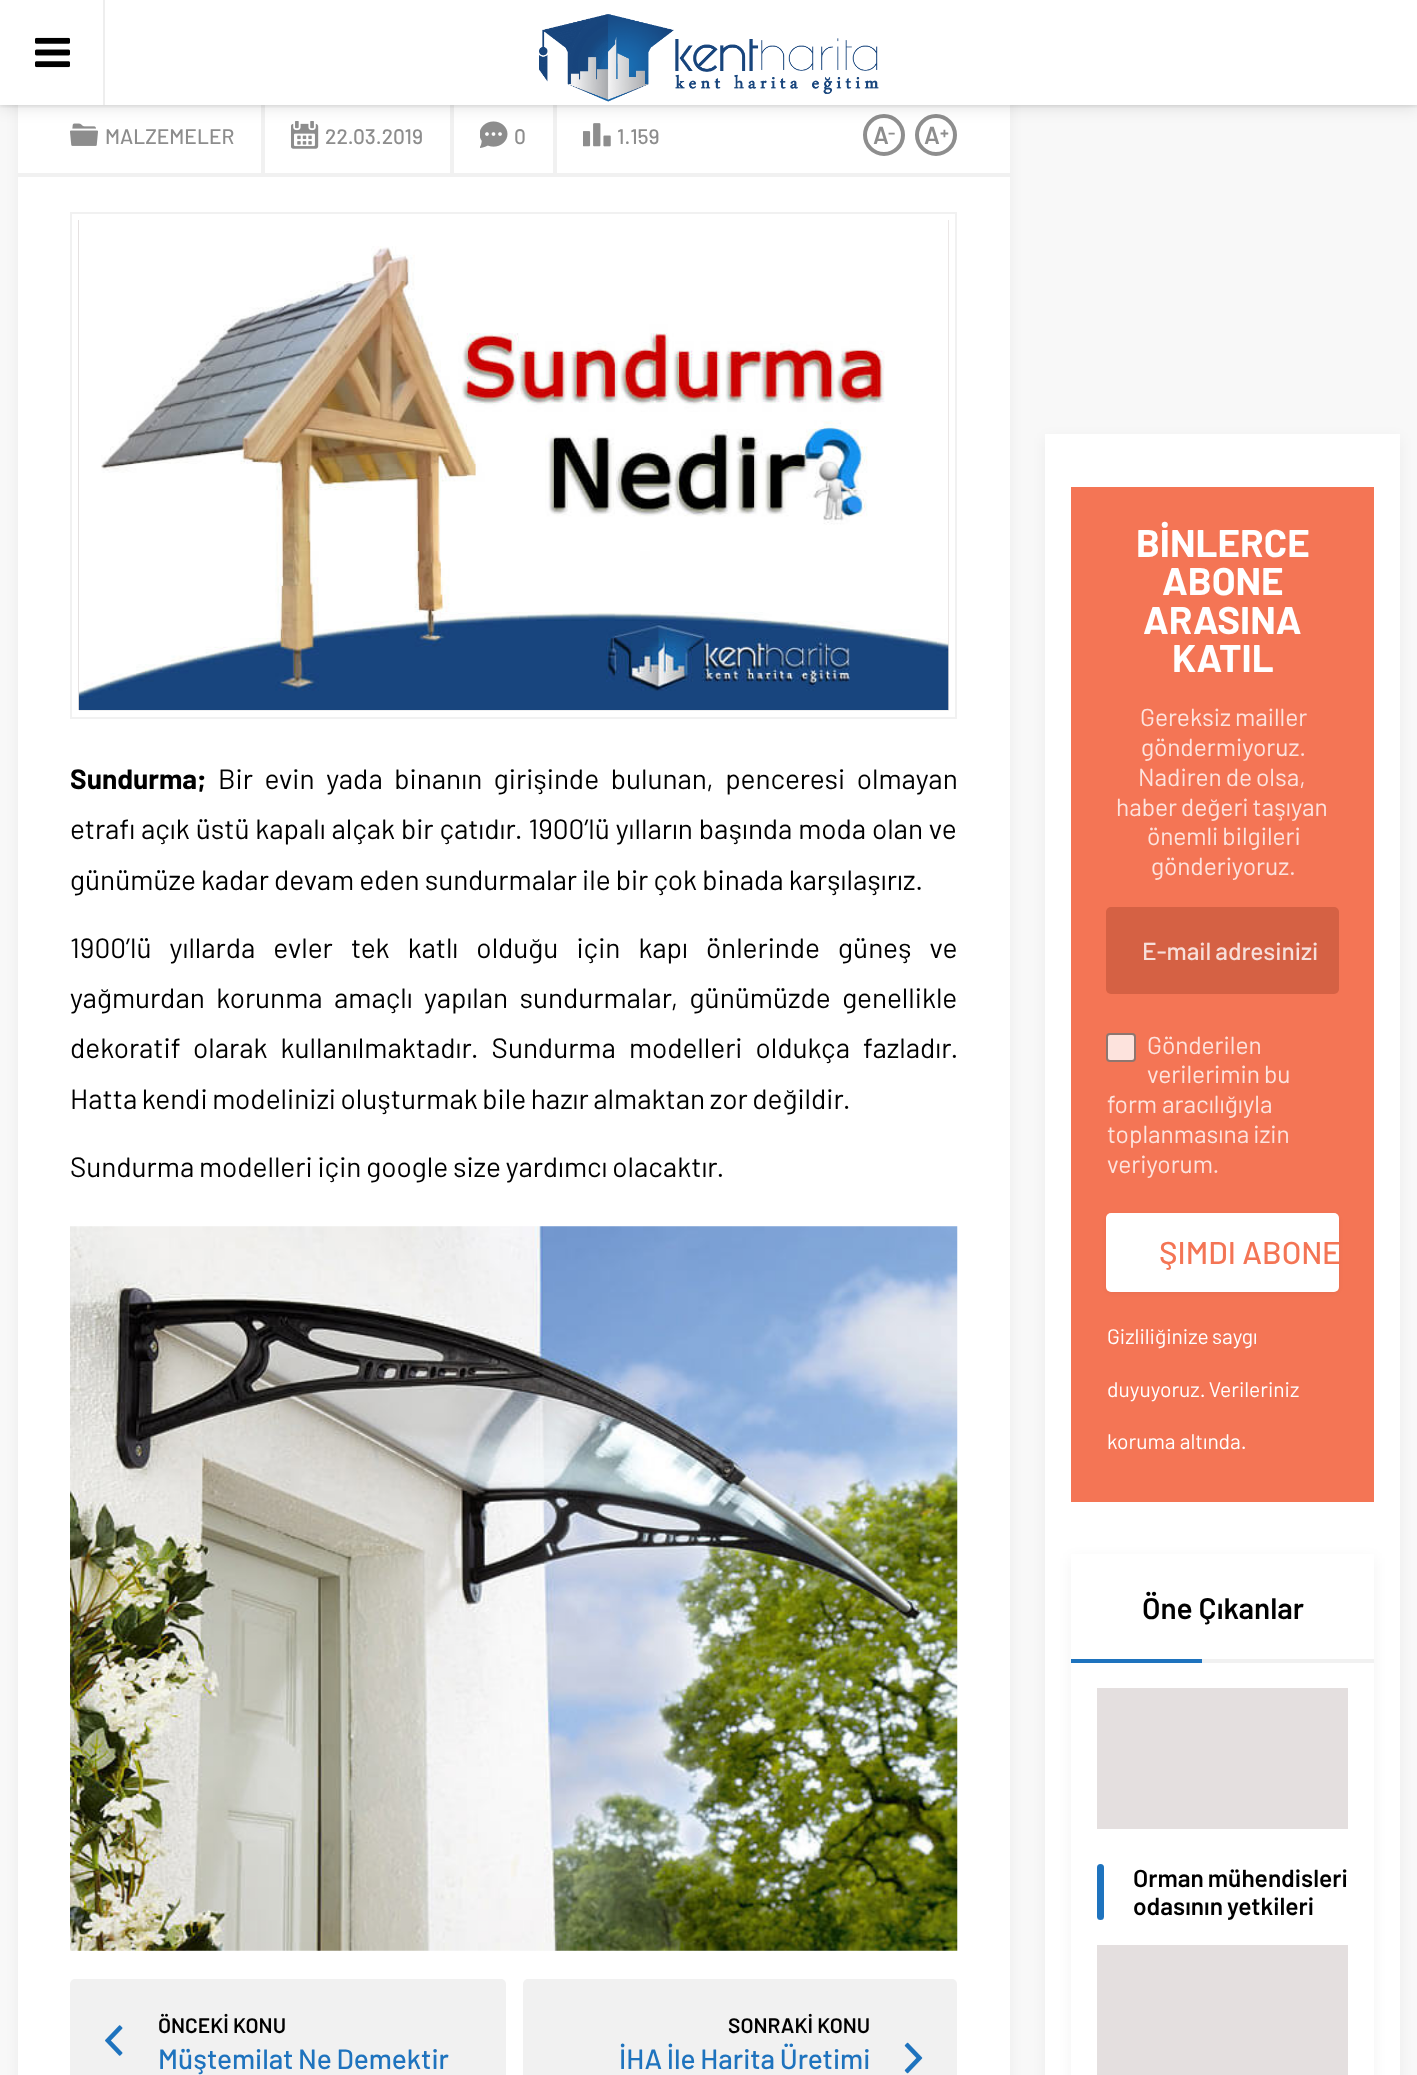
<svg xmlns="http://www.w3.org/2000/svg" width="1417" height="2075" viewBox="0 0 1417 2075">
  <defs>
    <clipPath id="clip1"><path d="M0 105h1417v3H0z"/></clipPath>
    <clipPath id="clip2"><rect x="1106" y="1213" width="233" height="79" rx="5"/></clipPath>
  </defs>
  <rect width="100%" height="100%" fill="#f8f8f8"/>
  <path d="M18 -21h992v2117H18z" fill="#0000000d" filter="blur(7px)"/>
  <path d="M18 105h992v1970H18z" fill="#fff"/>
  <image x="70" y="123" width="28" height="23" href="img/3.png"/>
  <path d="M261 105h4v68H261z" fill="#f1f1f1"/>
  <image x="291" y="121" width="28" height="28" href="img/4.png"/>
  <path d="M450 105h4v68H450z" fill="#f1f1f1"/>
  <image x="480" y="121" width="28" height="27" href="img/5.png"/>
  <path d="M553 105h4v68H553z" fill="#f1f1f1"/>
  <image x="583" y="123" width="28" height="24" href="img/6.png"/>
  <circle cx="884" cy="135" r="19" fill="none" stroke="#8e8e8e" stroke-width="4"/>
  <circle cx="936" cy="135" r="19" fill="none" stroke="#8e8e8e" stroke-width="4"/>
  <path d="M0 0h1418v105H0z" fill="#00000026" filter="blur(9px)"/>
  <path d="M0 0h1417v105H0z" fill="#fff"/>
  <g clip-path="url(#clip1)">
    <path d="M0 0h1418v105H0z" fill="#00000026" filter="blur(2.5px)"/>
  </g>
  <image x="539" y="14" width="340" height="88" href="img/1.png"/>
  <path d="M103 0h2v105H103z" fill="#eee"/>
  <image x="35" y="37" width="35" height="31" href="img/2.png"/>
  <path d="M18 173h992v4H18z" fill="#f1f1f1"/>
  <path d="M71 213h885v505H71z" fill="none" stroke="#f1f1f1" stroke-width="2"/>
  <path d="M79 710h870v1H79z" fill="#f0f0f0"/>
  <path d="M78 220h871v490H78z" fill="#e4dfdf"/>
  <image x="78" y="220" width="871" height="490" href="img/7.png"/>
  <image x="70" y="1226" width="888" height="725" href="img/8.png"/>
  <rect x="70" y="1979" width="436" height="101" rx="5" fill="#f1f1f1"/>
  <image x="105" y="2025" width="18" height="31" href="img/9.png"/>
  <rect x="523" y="1979" width="434" height="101" rx="5" fill="#f1f1f1"/>
  <image x="904" y="2042" width="19" height="32" href="img/10.png"/>
  <path d="M1045 438h355v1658H1045z" fill="#0000000d" filter="blur(7px)"/>
  <path d="M1045 434h355v1641H1045z" fill="#fff"/>
  <path d="M1071 487h303v1015H1071z" fill="#f47555"/>
  <rect x="1106" y="907" width="233" height="87" rx="5" fill="#d56144"/>
  <rect x="1107" y="1034" width="28" height="27" rx="3" fill="#fde3dd" stroke="#8f766f" stroke-width="2"/>
  <rect x="1106" y="1215" width="233" height="78" rx="5" fill="#0000000d" filter="blur(2px)"/>
  <rect x="1106" y="1213" width="233" height="79" rx="5" fill="#fff"/>
  <path d="M1071 1558h303v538H1071z" fill="#0000000d" filter="blur(7px)"/>
  <path d="M1071 1554h303v521H1071z" fill="#fff"/>
  <path d="M1071 1659h131v4H1071z" fill="#1e73be"/>
  <path d="M1202 1659h172v4H1202z" fill="#f1f1f1"/>
  <path d="M1097 1688h251v141H1097z" fill="#e4dfdf"/>
  <rect x="1097" y="1864" width="7" height="56" rx="3.5" fill="#1e73be"/>
  <path d="M1097 1945h251v130H1097z" fill="#e4dfdf"/>
  <g font-family="Barlow" font-size="21" font-weight="500" fill="#8d8d8d">
    <text x="105" y="144">MALZEMELER</text>
    <text x="325" y="144">22.03.2019</text>
    <text x="514" y="144">0</text>
    <text x="617" y="144">1.159</text>
  </g>
  <text x="873" y="144" font-family="Barlow" font-size="24.5" font-weight="600" fill="#8d8d8d">A</text>
  <text x="888" y="139" font-family="Barlow" font-size="18" font-weight="600" fill="#8d8d8d">-</text>
  <text x="924" y="144" font-family="Barlow" font-size="24.5" font-weight="600" fill="#8d8d8d">A</text>
  <text x="940" y="139" font-family="Barlow" font-size="18" font-weight="600" fill="#8d8d8d">+</text>
  <text x="70" y="789" font-family="Barlow" font-size="28" font-weight="bold" fill="#000">Sundurma;</text>
  <g font-family="Barlow" font-size="28" fill="#000">
    <text x="218" y="789" word-spacing="6">Bir evin yada binanın girişinde bulunan, penceresi olmayan</text>
    <text x="70" y="839" word-spacing="0.25">etrafı açık üstü kapalı alçak bir çatıdır. 1900’lü yılların başında moda olan ve</text>
    <text x="70" y="890" word-spacing="-0.5">günümüze kadar devam eden sundurmalar ile bir çok binada karşılaşırız.</text>
    <text x="70" y="958" word-spacing="12.5">1900’lü yıllarda evler tek katlı olduğu için kapı önlerinde güneş ve</text>
    <text x="70" y="1008" word-spacing="5.75">yağmurdan korunma amaçlı yapılan sundurmalar, günümüzde genellikle</text>
    <text x="70" y="1058">dekoratif</text>
    <text x="193" y="1058" word-spacing="7.5">olarak kullanılmaktadır. Sundurma modelleri oldukça fazladır.</text>
    <text x="70" y="1109" word-spacing="-1">Hatta kendi modelinizi oluşturmak bile hazır almaktan zor değildir.</text>
    <text x="70" y="1177" word-spacing="-0.75">Sundurma modelleri için google size yardımcı olacaktır.</text>
  </g>
  <text x="158" y="2033" font-family="Barlow" font-size="21" font-weight="600" fill="#000">ÖNCEKİ KONU</text>
  <text x="158" y="2069" word-spacing="-1" font-family="Barlow" font-size="28" font-weight="500" fill="#1e73be">Müştemilat Ne Demektir</text>
  <text x="728" y="2033" font-family="Barlow" font-size="21" font-weight="600" fill="#000">SONRAKİ KONU</text>
  <text x="619" y="2069" word-spacing="-1" font-family="Barlow" font-size="28" font-weight="500" fill="#1e73be">İHA İle Harita Üretimi</text>
  <g font-family="Barlow" font-size="38.5" font-weight="bold" fill="#fff">
    <text x="1136" y="557">BİNLERCE</text>
    <text x="1162" y="595">ABONE</text>
    <text x="1143" y="634">ARASINA</text>
    <text x="1172" y="672">KATIL</text>
  </g>
  <g font-family="Barlow" font-size="24.5" fill="#fde3dd">
    <text x="1140" y="726" word-spacing="-1">Gereksiz mailler</text>
    <text x="1141" y="756">göndermiyoruz.</text>
    <text x="1138" y="786" word-spacing="-1">Nadiren de olsa,</text>
    <text x="1116" y="816" word-spacing="-1">haber değeri taşıyan</text>
    <text x="1147" y="845" word-spacing="-1">önemli bilgileri</text>
    <text x="1151" y="875">gönderiyoruz.</text>
  </g>
  <text x="1142" y="960" word-spacing="-1" font-family="Barlow" font-size="24.5" font-weight="500" fill="#f7dfda">E-mail adresinizi</text>
  <g font-family="Barlow" font-size="24.5" fill="#fde3dd">
    <text x="1147" y="1054">Gönderilen</text>
    <text x="1147" y="1083" word-spacing="-1">verilerimin bu</text>
    <text x="1107" y="1113">form aracılığıyla</text>
    <text x="1107" y="1143" word-spacing="-1">toplanmasına izin</text>
    <text x="1107" y="1173">veriyorum.</text>
  </g>
  <g clip-path="url(#clip2)">
    <text x="1159" y="1264" font-family="Barlow" font-size="31.5" font-weight="500" fill="#f47555">ŞIMDI ABONE</text>
  </g>
  <g font-family="Barlow" font-size="21" fill="#fff">
    <text x="1107" y="1344" word-spacing="-1">Gizliliğinize saygı</text>
    <text x="1107" y="1397" word-spacing="-1">duyuyoruz. Verileriniz</text>
    <text x="1107" y="1449">koruma altında.</text>
  </g>
  <text x="1142" y="1619" font-family="Barlow" font-size="29.75" font-weight="600" fill="#000">Öne Çıkanlar</text>
  <g font-family="Barlow" font-size="24.5" font-weight="600" fill="#000">
    <text x="1133" y="1887" word-spacing="-1">Orman mühendisleri</text>
    <text x="1133" y="1915" word-spacing="-1">odasının yetkileri</text>
  </g>
</svg>
